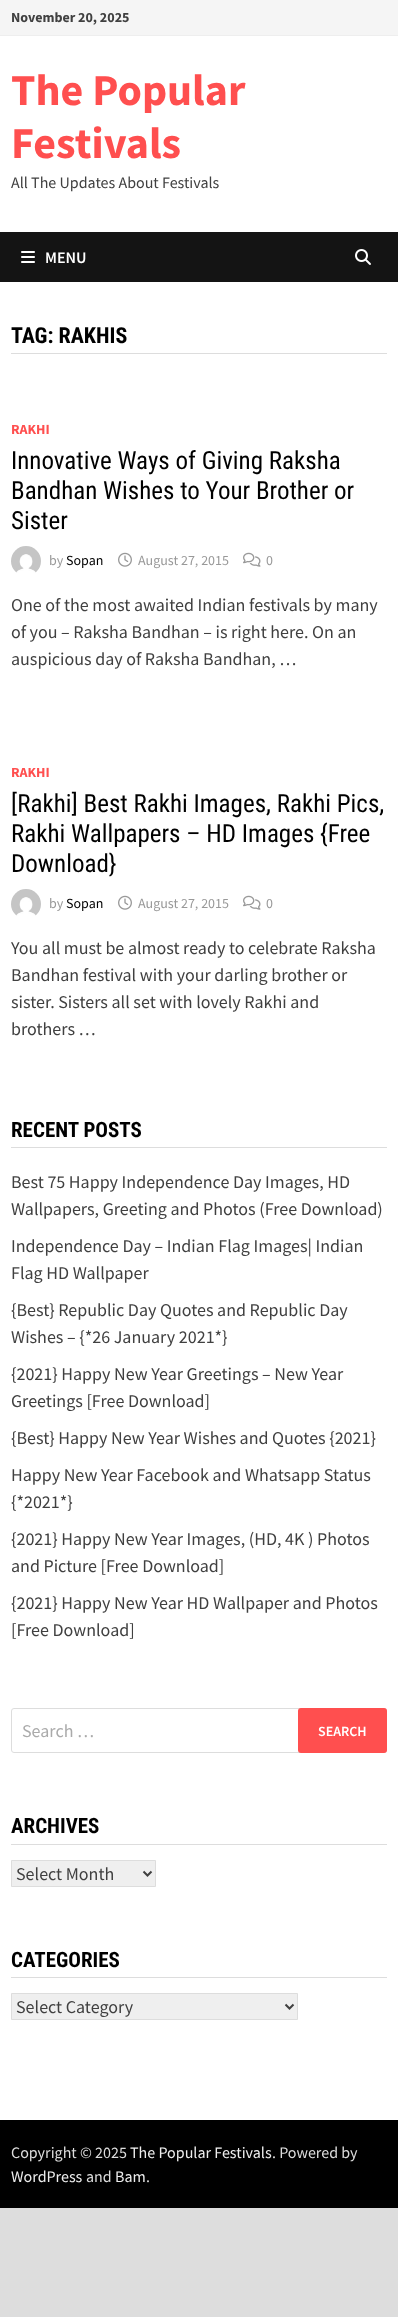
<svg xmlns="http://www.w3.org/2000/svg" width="398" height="2317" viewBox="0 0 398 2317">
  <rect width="100%" height="100%" fill="#ddd"/>
  <path d="M0 36h398v2084H0z" fill="#fff"/>
  <path d="M0 0h398v35H0z" fill="#f5f5f5"/>
  <path d="M0 35h398v1H0z" fill="#eee"/>
  <path d="M0 232h398v50H0z" fill="#141414"/>
  <image x="21" y="251" width="14" height="12" href="img/1.png"/>
  <image x="355" y="249" width="16" height="16" href="img/2.png"/>
  <path d="M11 353h376v1H11z" fill="#ddd"/>
  <image x="11" y="546" width="30" height="27" href="img/3.png"/>
  <image x="118" y="552" width="14" height="15" href="img/4.png"/>
  <image x="243" y="552" width="18" height="15" href="img/5.png"/>
  <image x="11" y="889" width="30" height="27" href="img/3.png"/>
  <image x="118" y="895" width="14" height="15" href="img/4.png"/>
  <image x="243" y="895" width="18" height="15" href="img/5.png"/>
  <path d="M11 1147h376v1H11z" fill="#ddd"/>
  <rect x="11.5" y="1708.5" width="375" height="44" rx="2.5" fill="none" stroke="#ddd"/>
  <rect x="298" y="1708" width="89" height="45" rx="3" fill="#ff4f4f"/>
  <path d="M11 1844h376v1H11z" fill="#ddd"/>
  <path d="M11.5 1860.5h144v26H11.5z" fill="#efefef" stroke="#ddd"/>
  <path d="M143.5 1871.5L147.5 1875.5L151.5 1871.5" fill="none" stroke="#404040" stroke-width="2"/>
  <path d="M11 1977h376v1H11z" fill="#ddd"/>
  <path d="M11.5 1993.5h286v26H11.5z" fill="#efefef" stroke="#ddd"/>
  <path d="M285.5 2004.5L289.5 2008.5L293.5 2004.5" fill="none" stroke="#404040" stroke-width="2"/>
  <path d="M0 2120h398v88H0z" fill="#000"/>
  <text x="11" y="22" font-family="Source Sans Pro" font-size="14" font-weight="bold" fill="#404040">November 20, 2025</text>
  <g font-family="Source Sans Pro" font-size="44" font-weight="bold" fill="#ff4f4f">
    <text x="11" y="105">The Popular</text>
    <text x="11" y="158">Festivals</text>
  </g>
  <text x="11" y="188" font-family="Source Sans Pro" font-size="16" fill="#404040">All The Updates About Festivals</text>
  <text x="45" y="263" font-family="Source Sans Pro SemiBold" font-size="16" font-weight="600" fill="#fff">MENU</text>
  <text x="11" y="343" font-family="Roboto Condensed" font-size="22" font-weight="bold" fill="#000">TAG: RAKHIS</text>
  <text x="11" y="434" font-family="Source Sans Pro" font-size="14" font-weight="bold" fill="#ff4f4f">RAKHI</text>
  <g font-family="Roboto Condensed" font-size="25" fill="#000">
    <text x="11" y="469">Innovative Ways of Giving Raksha</text>
    <text x="11" y="499">Bandhan Wishes to Your Brother or</text>
    <text x="11" y="529">Sister</text>
  </g>
  <text x="49" y="565" font-family="Source Sans Pro" font-size="14" fill="#999">by</text>
  <text x="66" y="565" font-family="Source Sans Pro" font-size="14" fill="#000">Sopan</text>
  <g font-family="Source Sans Pro" font-size="14" fill="#999">
    <text x="138" y="565">August 27, 2015</text>
    <text x="266" y="565">0</text>
  </g>
  <g font-family="Source Sans Pro" font-size="18" fill="#404040">
    <text x="11" y="611">One of the most awaited Indian festivals by many</text>
    <text x="11" y="638">of you – Raksha Bandhan – is right here. On an</text>
    <text x="11" y="665">auspicious day of Raksha Bandhan, …</text>
  </g>
  <text x="11" y="777" font-family="Source Sans Pro" font-size="14" font-weight="bold" fill="#ff4f4f">RAKHI</text>
  <g font-family="Roboto Condensed" font-size="25" fill="#000">
    <text x="11" y="812">[Rakhi] Best Rakhi Images, Rakhi Pics,</text>
    <text x="11" y="842">Rakhi Wallpapers – HD Images {Free</text>
    <text x="11" y="872">Download}</text>
  </g>
  <text x="49" y="908" font-family="Source Sans Pro" font-size="14" fill="#999">by</text>
  <text x="66" y="908" font-family="Source Sans Pro" font-size="14" fill="#000">Sopan</text>
  <g font-family="Source Sans Pro" font-size="14" fill="#999">
    <text x="138" y="908">August 27, 2015</text>
    <text x="266" y="908">0</text>
  </g>
  <g font-family="Source Sans Pro" font-size="18" fill="#404040">
    <text x="11" y="954">You all must be almost ready to celebrate Raksha</text>
    <text x="11" y="981">Bandhan festival with your darling brother or</text>
    <text x="11" y="1008">sister. Sisters all set with lovely Rakhi and</text>
    <text x="11" y="1035">brothers …</text>
  </g>
  <text x="11" y="1137" font-family="Roboto Condensed" font-size="21" font-weight="bold" fill="#000">RECENT POSTS</text>
  <g font-family="Source Sans Pro" font-size="18" fill="#404040">
    <text x="11" y="1188">Best 75 Happy Independence Day Images, HD</text>
    <text x="11" y="1215">Wallpapers, Greeting and Photos (Free Download)</text>
    <text x="11" y="1252">Independence Day – Indian Flag Images| Indian</text>
    <text x="11" y="1279">Flag HD Wallpaper</text>
    <text x="11" y="1316">{Best} Republic Day Quotes and Republic Day</text>
    <text x="11" y="1343">Wishes – {*26 January 2021*}</text>
    <text x="11" y="1380">{2021} Happy New Year Greetings – New Year</text>
    <text x="11" y="1407">Greetings [Free Download]</text>
    <text x="11" y="1444">{Best} Happy New Year Wishes and Quotes {2021}</text>
    <text x="11" y="1481">Happy New Year Facebook and Whatsapp Status</text>
    <text x="11" y="1508">{*2021*}</text>
    <text x="11" y="1545">{2021} Happy New Year Images, (HD, 4K ) Photos</text>
    <text x="11" y="1572">and Picture [Free Download]</text>
    <text x="11" y="1609">{2021} Happy New Year HD Wallpaper and Photos</text>
    <text x="11" y="1636">[Free Download]</text>
  </g>
  <text x="22" y="1737" font-family="Source Sans Pro" font-size="18" fill="#aaa">Search …</text>
  <text x="318" y="1736" font-family="Source Sans Pro SemiBold" font-size="14" font-weight="600" fill="#fff">SEARCH</text>
  <text x="11" y="1833" font-family="Roboto Condensed" font-size="21" font-weight="bold" fill="#000">ARCHIVES</text>
  <text x="16" y="1880" font-family="Source Sans Pro" font-size="18" fill="#404040">Select Month</text>
  <text x="11" y="1967" font-family="Roboto Condensed" font-size="21" font-weight="bold" fill="#000">CATEGORIES</text>
  <text x="16" y="2013" font-family="Source Sans Pro" font-size="18" fill="#404040">Select Category</text>
  <text x="11" y="2158" font-family="Source Sans Pro" font-size="16" fill="#ddd">Copyright © 2025</text>
  <text x="130" y="2158" font-family="Source Sans Pro" font-size="16" fill="#eee">The Popular Festivals</text>
  <text x="272" y="2158" font-family="Source Sans Pro" font-size="16" fill="#ddd">. Powered by</text>
  <text x="11" y="2182" font-family="Source Sans Pro" font-size="16" fill="#eee">WordPress</text>
  <text x="86" y="2182" font-family="Source Sans Pro" font-size="16" fill="#ddd">and</text>
  <text x="115" y="2182" font-family="Source Sans Pro" font-size="16" fill="#eee">Bam</text>
  <text x="146" y="2182" font-family="Source Sans Pro" font-size="16" fill="#ddd">.</text>
</svg>
